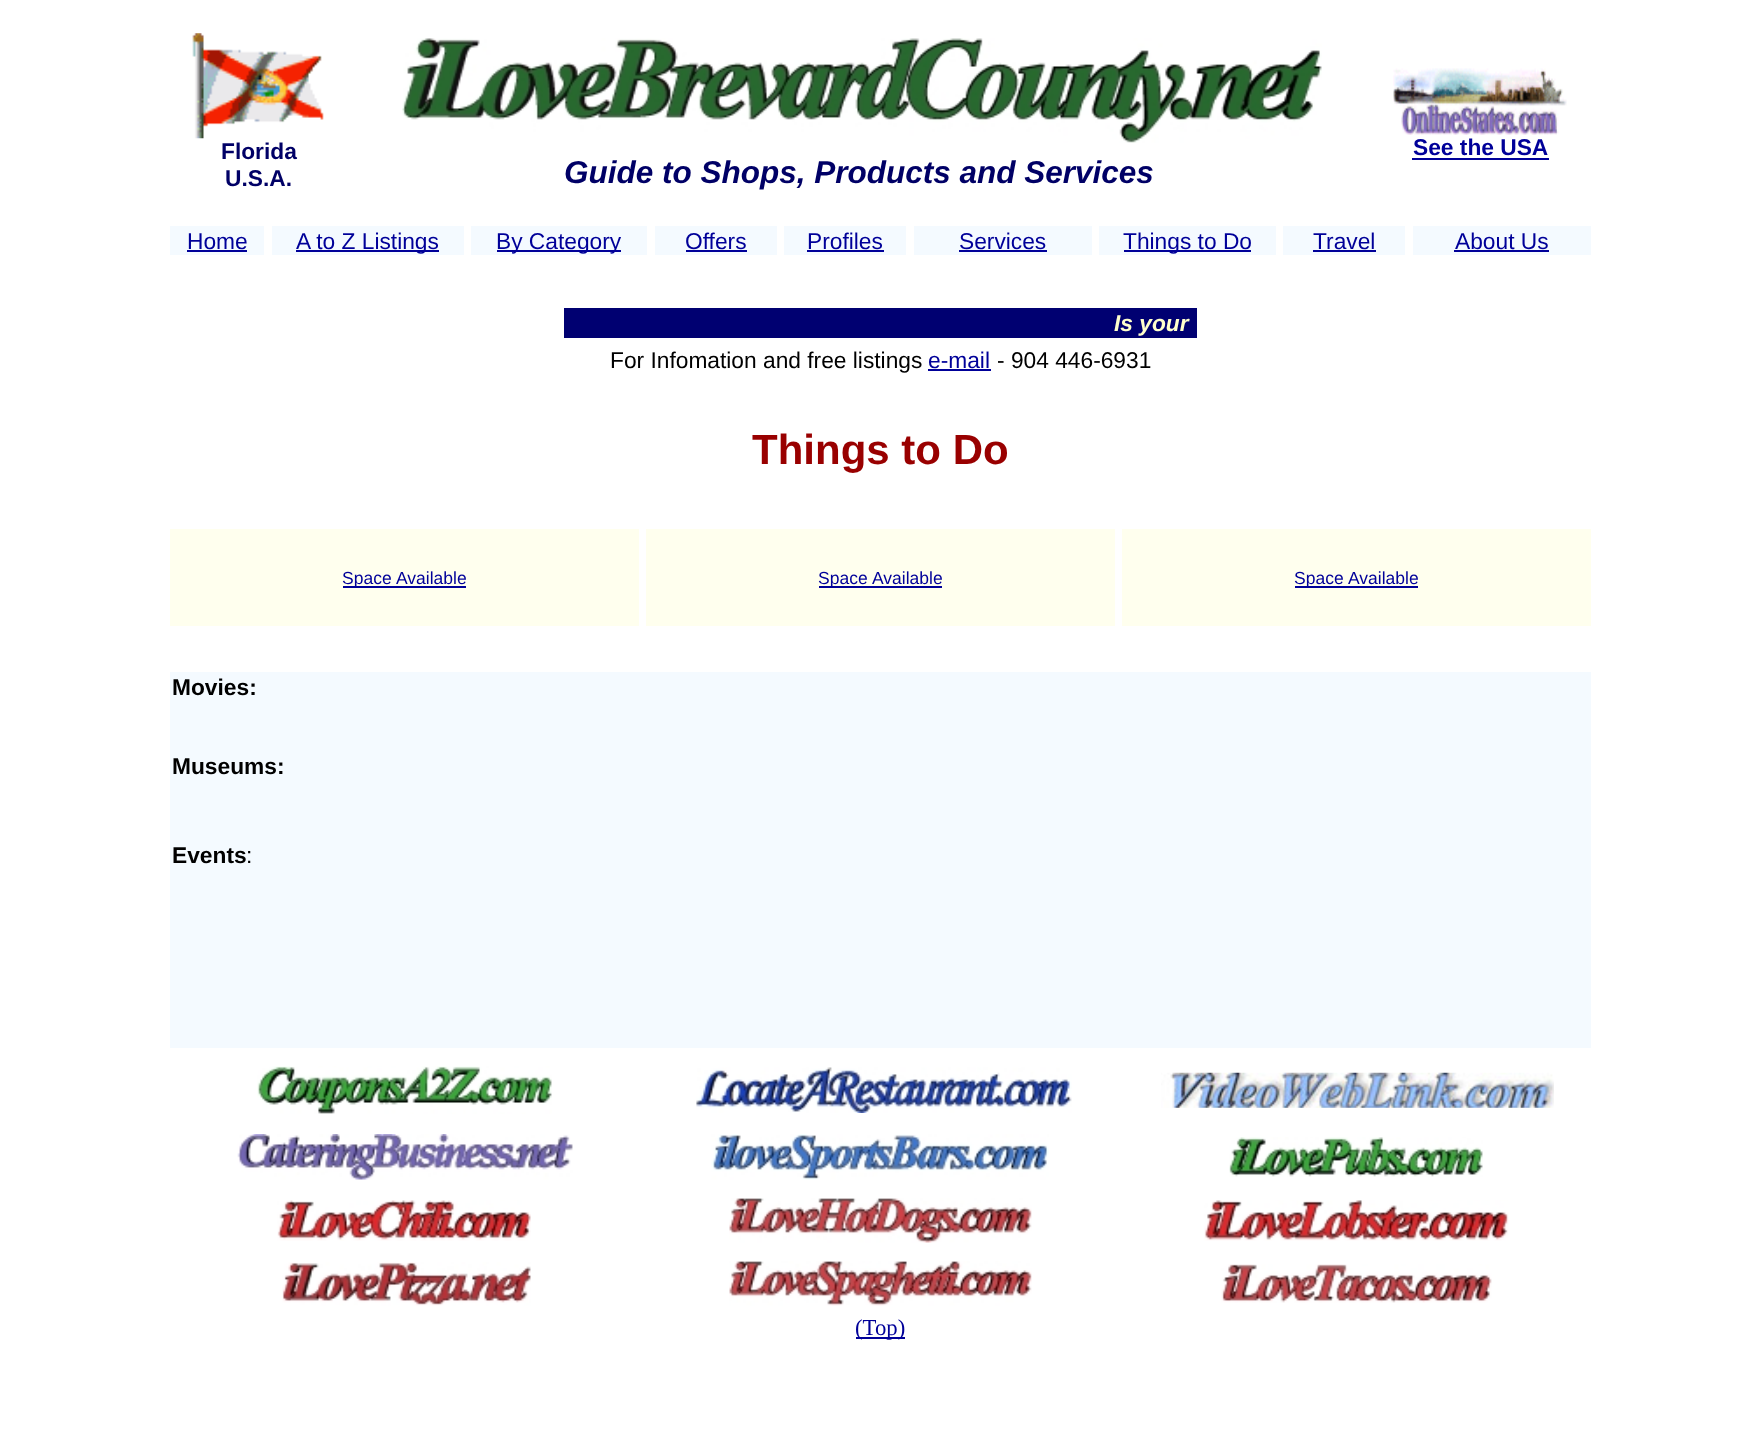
<svg xmlns="http://www.w3.org/2000/svg" width="1760" height="1455" viewBox="0 0 1760 1455">
  <rect width="100%" height="100%" fill="#fff"/>
  <image x="192" y="33" width="132" height="106" href="img/1.png"/>
  <image x="402" y="38" width="920" height="105" href="img/2.png"/>
  <image x="1393" y="68" width="174" height="67" href="img/3.png"/>
  <path d="M1412 158h137v2H1412z" fill="#009"/>
  <path d="M170 226h94v29H170z" fill="#f4faff"/>
  <path d="M187 250h60v2H187z" fill="#009"/>
  <path d="M272 226h192v29H272z" fill="#f4faff"/>
  <path d="M296 250h143v2H296z" fill="#009"/>
  <path d="M471 226h176v29H471z" fill="#f4faff"/>
  <path d="M497 250h124v2H497z" fill="#009"/>
  <path d="M655 226h122v29H655z" fill="#f4faff"/>
  <path d="M686 250h61v2H686z" fill="#009"/>
  <path d="M784 226h122v29H784z" fill="#f4faff"/>
  <path d="M807 250h77v2H807z" fill="#009"/>
  <path d="M914 226h178v29H914z" fill="#f4faff"/>
  <path d="M959 250h88v2H959z" fill="#009"/>
  <path d="M1099 226h177v29H1099z" fill="#f4faff"/>
  <path d="M1124 250h127v2H1124z" fill="#009"/>
  <path d="M1283 226h122v29H1283z" fill="#f4faff"/>
  <path d="M1313 250h63v2H1313z" fill="#009"/>
  <path d="M1413 226h178v29H1413z" fill="#f4faff"/>
  <path d="M1454 250h95v2H1454z" fill="#009"/>
  <path d="M564 308h633v30H564z" fill="#000071"/>
  <path d="M928 369h63v2H928z" fill="#009"/>
  <path d="M170 529h469v97H170z" fill="#ffe"/>
  <path d="M343 586h123v2H343z" fill="#009"/>
  <path d="M646 529h469v97H646z" fill="#ffe"/>
  <path d="M819 586h123v2H819z" fill="#009"/>
  <path d="M1122 529h469v97H1122z" fill="#ffe"/>
  <path d="M1295 586h123v2H1295z" fill="#009"/>
  <path d="M170 672h1421v376H170z" fill="#f4faff"/>
  <image x="257" y="1066" width="295" height="48" href="img/4.png"/>
  <image x="696" y="1067" width="376" height="46" href="img/5.png"/>
  <image x="1161" y="1072" width="393" height="36" href="img/6.png"/>
  <image x="237" y="1134" width="336" height="46" href="img/7.png"/>
  <image x="711" y="1134" width="338" height="46" href="img/8.png"/>
  <image x="1229" y="1137" width="254" height="40" href="img/9.png"/>
  <image x="277" y="1200" width="254" height="41" href="img/10.png"/>
  <image x="729" y="1198" width="303" height="45" href="img/11.png"/>
  <image x="1204" y="1200" width="305" height="41" href="img/12.png"/>
  <image x="282" y="1262" width="249" height="44" href="img/13.png"/>
  <image x="729" y="1261" width="303" height="45" href="img/14.png"/>
  <image x="1221" y="1264" width="271" height="39" href="img/15.png"/>
  <path d="M856 1337h49v2H856z" fill="#009"/>
  <g font-family="Liberation Sans" font-size="22.75" font-weight="bold" fill="#006">
    <text x="221" y="159">Florida</text>
    <text x="225" y="186">U.S.A.</text>
  </g>
  <text x="564" y="183" font-family="Liberation Sans" font-size="31.5" font-weight="bold" font-style="italic" fill="#006">Guide to Shops, Products and Services</text>
  <text x="1413" y="155" font-family="Liberation Sans" font-size="22.75" font-weight="bold" fill="#009">See the USA</text>
  <g font-family="Liberation Sans" font-size="22.75" fill="#009">
    <text x="187" y="249">Home</text>
    <text x="296" y="249">A to Z Listings</text>
    <text x="496" y="249">By Category</text>
    <text x="685" y="249">Offers</text>
    <text x="807" y="249">Profiles</text>
    <text x="959" y="249">Services</text>
    <text x="1123" y="249">Things to Do</text>
    <text x="1313" y="249">Travel</text>
    <text x="1455" y="249">About Us</text>
  </g>
  <text x="1114" y="331" font-family="Liberation Sans" font-size="22.75" font-weight="bold" font-style="italic" fill="#ffc">Is your</text>
  <text x="610" y="368" font-family="Liberation Sans" font-size="22.75" fill="#000">For Infomation and free listings</text>
  <text x="928" y="368" font-family="Liberation Sans" font-size="22.75" fill="#009">e-mail</text>
  <text x="997" y="368" font-family="Liberation Sans" font-size="22.75" fill="#000">- 904 446-6931</text>
  <text x="752" y="464" font-family="Liberation Sans" font-size="42" font-weight="bold" fill="#900">Things to Do</text>
  <g font-family="Liberation Sans" font-size="17.5" fill="#009">
    <text x="342" y="584">Space</text>
    <text x="396" y="584">Available</text>
    <text x="818" y="584">Space</text>
    <text x="872" y="584">Available</text>
    <text x="1294" y="584">Space</text>
    <text x="1348" y="584">Available</text>
  </g>
  <g font-family="Liberation Sans" font-size="22.75" font-weight="bold" fill="#000">
    <text x="172" y="695">Movies:</text>
    <text x="172" y="774">Museums:</text>
    <text x="172" y="863">Events</text>
  </g>
  <text x="246" y="863" font-family="Liberation Sans" font-size="22.75" fill="#000">:</text>
  <text x="855" y="1335" font-family="Liberation Serif" font-size="22.75" fill="#009">(Top)</text>
</svg>
